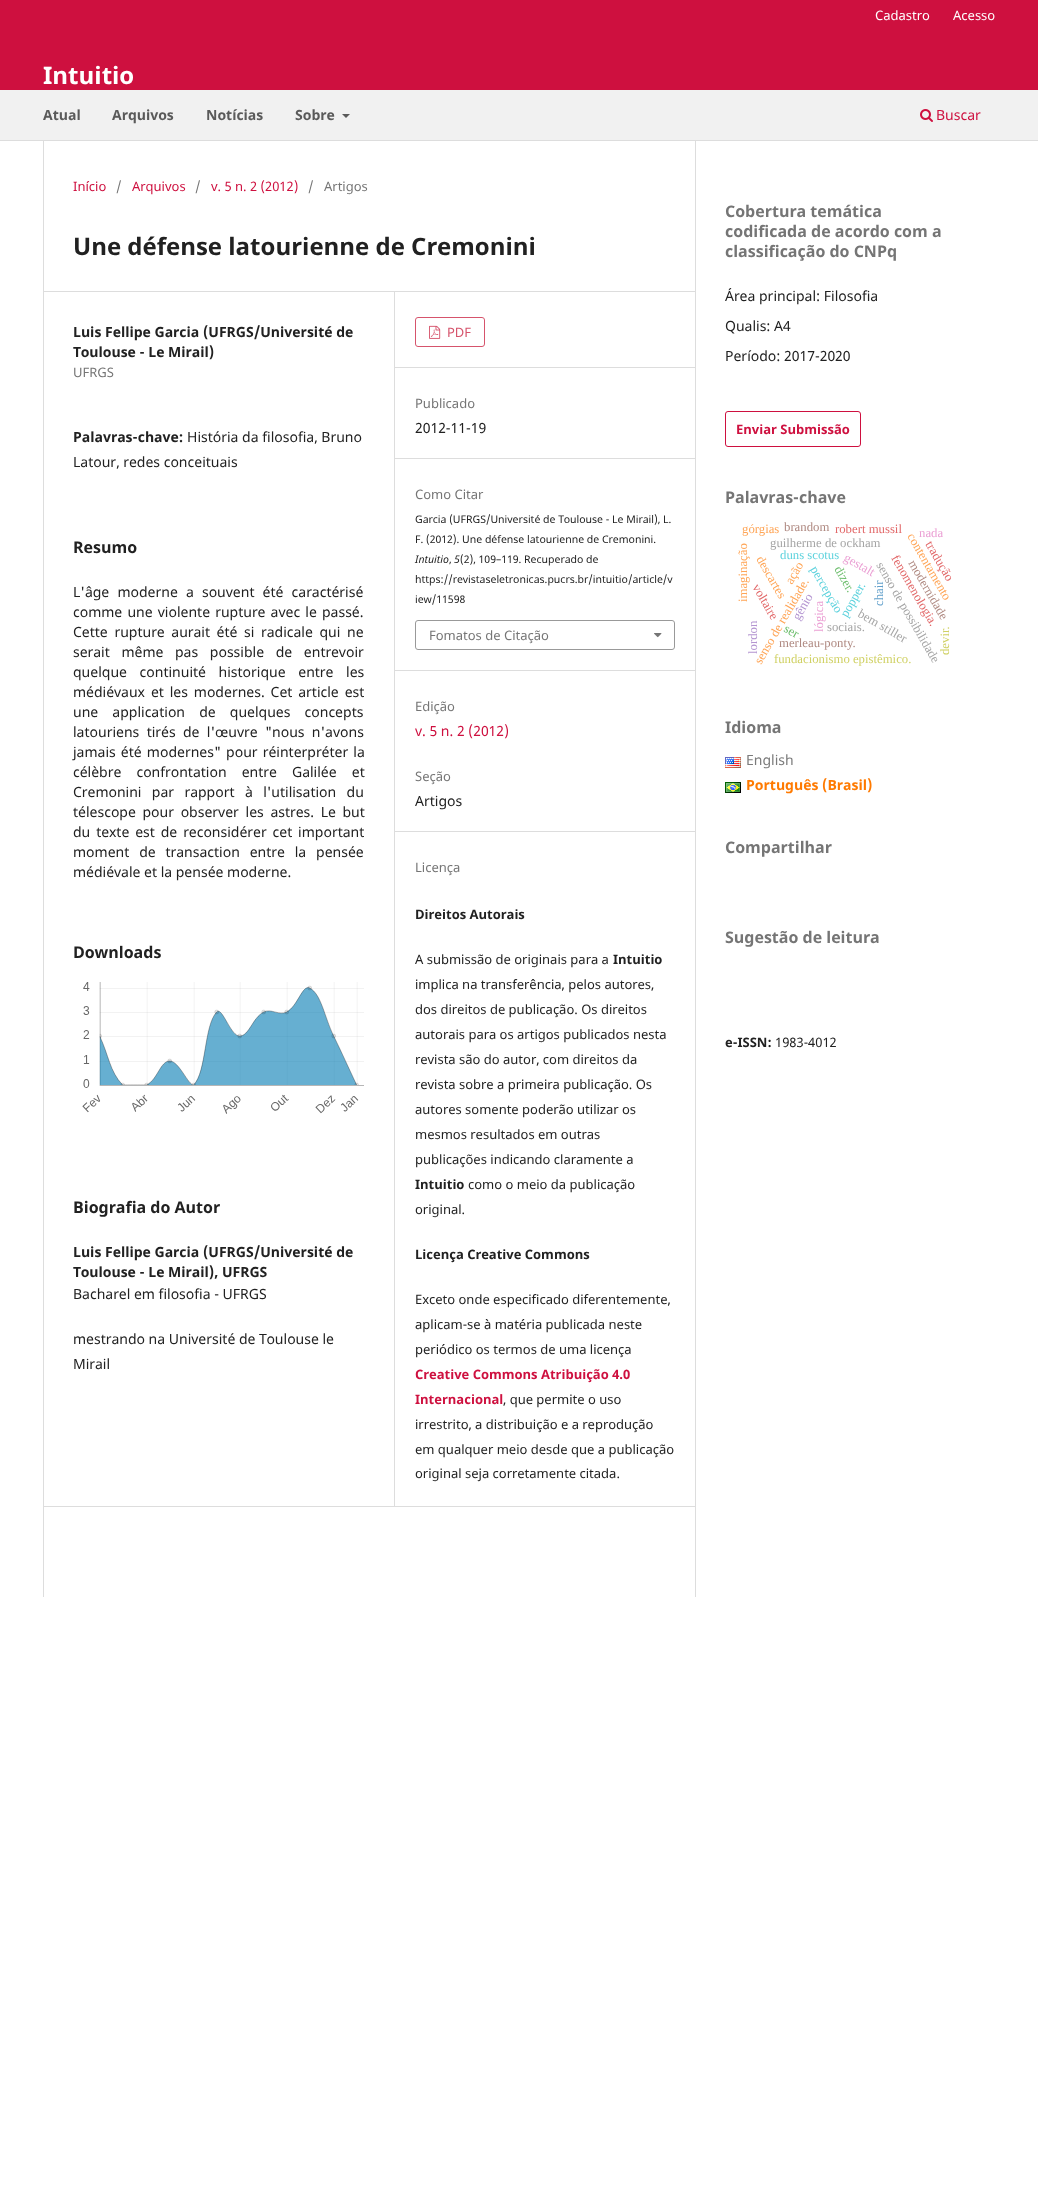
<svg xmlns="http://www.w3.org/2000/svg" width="1038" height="2191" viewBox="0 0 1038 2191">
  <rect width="100%" height="100%" fill="#fff"/>
  <path d="M0 0h1038v90H0z" fill="#ce103f"/>
  <path d="M0 140h1038v1H0z" fill="#ddd"/>
  <path d="M0 90h1038v50H0z" fill="#f1f1f1"/>
  <path d="M342 114H350L346 118Z" fill="#5a5a5a"/>
  <image x="920" y="109" width="13" height="13" href="img/1.png"/>
  <path d="M43 291h652v1H43z" fill="#ddd"/>
  <path d="M43 1506h652v1H43z" fill="#ddd"/>
  <path d="M43 141h1v1456H43z" fill="#ddd"/>
  <path d="M394 292h1v1214H394z" fill="#ddd"/>
  <image x="82" y="982" width="282" height="132" href="img/2.png"/>
  <path d="M395 367h300v1H395z" fill="#ddd"/>
  <rect x="415.5" y="317.5" width="69" height="29" rx="2.5" fill="none" stroke="#d6546c"/>
  <image x="429" y="325" width="12" height="14" href="img/3.png"/>
  <path d="M395 458h300v1H395z" fill="#ddd"/>
  <path d="M395 670h300v1H395z" fill="#ddd"/>
  <rect x="415.5" y="620.5" width="259" height="29" rx="2.5" fill="none" stroke="#999"/>
  <image x="654" y="633" width="8" height="5" href="img/4.png"/>
  <path d="M395 831h300v1H395z" fill="#ddd"/>
  <path d="M695 141h1v1456H695z" fill="#ddd"/>
  <rect x="725.5" y="411.5" width="135" height="35" rx="2.5" fill="none" stroke="#ce103f"/>
  <image x="725" y="757" width="16" height="11" href="img/5.png"/>
  <image x="725" y="782" width="16" height="11" href="img/6.png"/>
  <g font-family="Noto Sans" font-size="13" fill="#fff">
    <text x="875" y="20">Cadastro</text>
    <text x="953" y="20">Acesso</text>
  </g>
  <g font-family="Noto Sans" font-size="14" font-weight="bold" fill="#5a5a5a">
    <text x="43" y="120">Atual</text>
    <text x="112" y="120">Arquivos</text>
    <text x="206" y="120">Notícias</text>
    <text x="295" y="120">Sobre</text>
  </g>
  <text x="936" y="120" font-family="Noto Sans" font-size="14" fill="#ce103f">Buscar</text>
  <text x="43" y="84" font-family="Noto Sans" font-size="24" font-weight="bold" fill="#fff">Intuitio</text>
  <text x="73" y="191" font-family="Noto Sans" font-size="13" fill="#ce103f">Início</text>
  <text x="116" y="191" font-family="Noto Sans" font-size="13" fill="#757575">/</text>
  <text x="132" y="191" font-family="Noto Sans" font-size="13" fill="#ce103f">Arquivos</text>
  <text x="195" y="191" font-family="Noto Sans" font-size="13" fill="#757575">/</text>
  <text x="211" y="191" font-family="Noto Sans" font-size="13" fill="#ce103f">v. 5 n. 2 (2012)</text>
  <g font-family="Noto Sans" font-size="13" fill="#757575">
    <text x="308" y="191">/</text>
    <text x="324" y="191">Artigos</text>
  </g>
  <text x="73" y="255" font-family="Noto Sans" font-size="24" font-weight="bold" fill="#212121">Une défense latourienne de Cremonini</text>
  <g font-family="Noto Sans" font-size="14" font-weight="bold" fill="#212121">
    <text x="73" y="337">Luis Fellipe Garcia (UFRGS/Université de</text>
    <text x="73" y="357">Toulouse - Le Mirail)</text>
  </g>
  <text x="73" y="377" font-family="Noto Sans" font-size="13" fill="#757575">UFRGS</text>
  <text x="73" y="442" font-family="Noto Sans" font-size="14" font-weight="bold" fill="#212121">Palavras-chave:</text>
  <g font-family="Noto Sans" font-size="14" fill="#212121">
    <text x="187" y="442">História da filosofia, Bruno</text>
    <text x="73" y="467">Latour, redes conceituais</text>
  </g>
  <text x="73" y="553" font-family="Noto Sans" font-size="16" font-weight="bold" fill="#212121">Resumo</text>
  <g font-family="Noto Sans" font-size="14" fill="#212121">
    <text x="73" y="597" word-spacing="4.5">L'âge moderne a souvent été caractérisé</text>
    <text x="73" y="617" word-spacing="1.5">comme une violente rupture avec le passé.</text>
    <text x="73" y="637" word-spacing="3">Cette rupture aurait été si radicale qui ne</text>
    <text x="73" y="657" word-spacing="8">serait même pas possible de entrevoir</text>
    <text x="73" y="677" word-spacing="9">quelque continuité historique entre les</text>
    <text x="73" y="697" word-spacing="2.25">médiévaux et les modernes. Cet article est</text>
    <text x="73" y="717" word-spacing="10.5">une application de quelques concepts</text>
    <text x="73" y="737" word-spacing="3.75">latouriens tirés de l'œuvre "nous n'avons</text>
    <text x="73" y="757" word-spacing="1.5">jamais été modernes" pour réinterpréter la</text>
    <text x="73" y="777" word-spacing="11.5">célèbre confrontation entre Galilée et</text>
    <text x="73" y="797" word-spacing="6.75">Cremonini par rapport à l'utilisation du</text>
    <text x="73" y="817" word-spacing="3">télescope pour observer les astres. Le but</text>
    <text x="73" y="837" word-spacing="2.25">du texte est de reconsidérer cet important</text>
    <text x="73" y="857" word-spacing="6.25">moment de transaction entre la pensée</text>
    <text x="73" y="877">médiévale et la pensée moderne.</text>
  </g>
  <g font-family="Noto Sans" font-size="16" font-weight="bold" fill="#212121">
    <text x="73" y="958">Downloads</text>
    <text x="73" y="1213">Biografia do Autor</text>
  </g>
  <g font-family="Noto Sans" font-size="14" font-weight="bold" fill="#212121">
    <text x="73" y="1257">Luis Fellipe Garcia (UFRGS/Université de</text>
    <text x="73" y="1277">Toulouse - Le Mirail), UFRGS</text>
  </g>
  <g font-family="Noto Sans" font-size="14" fill="#212121">
    <text x="73" y="1299">Bacharel em filosofia - UFRGS</text>
    <text x="73" y="1344">mestrando na Université de Toulouse le</text>
    <text x="73" y="1369">Mirail</text>
  </g>
  <text x="447" y="337" font-family="Noto Sans" font-size="13" fill="#d6546c">PDF</text>
  <text x="415" y="408" font-family="Noto Sans" font-size="13" fill="#757575">Publicado</text>
  <text x="415" y="433" font-family="Noto Sans" font-size="14" fill="#212121">2012-11-19</text>
  <text x="415" y="499" font-family="Noto Sans" font-size="13" fill="#757575">Como Citar</text>
  <g font-family="Noto Sans" font-size="10.5" fill="#212121">
    <text x="415" y="523">Garcia (UFRGS/Université de Toulouse - Le Mirail), L.</text>
    <text x="415" y="543">F. (2012). Une défense latourienne de Cremonini.</text>
  </g>
  <text x="415" y="563" font-family="Noto Sans" font-size="10.5" font-style="italic" fill="#212121">Intuitio</text>
  <text x="449" y="563" font-family="Noto Sans" font-size="10.5" fill="#212121">,</text>
  <text x="454" y="563" font-family="Noto Sans" font-size="10.5" font-style="italic" fill="#212121">5</text>
  <g font-family="Noto Sans" font-size="10.5" fill="#212121">
    <text x="460" y="563">(2), 109–119. Recuperado de</text>
    <text x="415" y="583">https://revistaseletronicas.pucrs.br/intuitio/article/v</text>
    <text x="415" y="603">iew/11598</text>
  </g>
  <g font-family="Noto Sans" font-size="13" fill="#757575">
    <text x="429" y="640">Fomatos de Citação</text>
    <text x="415" y="711">Edição</text>
  </g>
  <text x="415" y="736" font-family="Noto Sans" font-size="14" fill="#ce103f">v. 5 n. 2 (2012)</text>
  <text x="415" y="781" font-family="Noto Sans" font-size="13" fill="#757575">Seção</text>
  <text x="415" y="806" font-family="Noto Sans" font-size="14" fill="#212121">Artigos</text>
  <text x="415" y="872" font-family="Noto Sans" font-size="13" fill="#757575">Licença</text>
  <text x="415" y="919" font-family="Noto Sans" font-size="13" font-weight="bold" fill="#212121">Direitos Autorais</text>
  <text x="415" y="964" font-family="Noto Sans" font-size="13" fill="#212121">A submissão de originais para a</text>
  <text x="613" y="964" font-family="Noto Sans" font-size="13" font-weight="bold" fill="#212121">Intuitio</text>
  <g font-family="Noto Sans" font-size="13" fill="#212121">
    <text x="415" y="989">implica na transferência, pelos autores,</text>
    <text x="415" y="1014">dos direitos de publicação. Os direitos</text>
    <text x="415" y="1039">autorais para os artigos publicados nesta</text>
    <text x="415" y="1064">revista são do autor, com direitos da</text>
    <text x="415" y="1089">revista sobre a primeira publicação. Os</text>
    <text x="415" y="1114">autores somente poderão utilizar os</text>
    <text x="415" y="1139">mesmos resultados em outras</text>
    <text x="415" y="1164">publicações indicando claramente a</text>
  </g>
  <text x="415" y="1189" font-family="Noto Sans" font-size="13" font-weight="bold" fill="#212121">Intuitio</text>
  <g font-family="Noto Sans" font-size="13" fill="#212121">
    <text x="468" y="1189">como o meio da publicação</text>
    <text x="415" y="1214">original.</text>
  </g>
  <text x="415" y="1259" font-family="Noto Sans" font-size="13" font-weight="bold" fill="#212121">Licença Creative Commons</text>
  <g font-family="Noto Sans" font-size="13" fill="#212121">
    <text x="415" y="1304">Exceto onde especificado diferentemente,</text>
    <text x="415" y="1329">aplicam-se à matéria publicada neste</text>
    <text x="415" y="1354">periódico os termos de uma licença</text>
  </g>
  <g font-family="Noto Sans" font-size="13" font-weight="bold" fill="#ce103f">
    <text x="415" y="1379">Creative Commons Atribuição 4.0</text>
    <text x="415" y="1404">Internacional</text>
  </g>
  <g font-family="Noto Sans" font-size="13" fill="#212121">
    <text x="503" y="1404">, que permite o uso</text>
    <text x="415" y="1429">irrestrito, a distribuição e a reprodução</text>
    <text x="415" y="1454">em qualquer meio desde que a publicação</text>
    <text x="415" y="1478">original seja corretamente citada.</text>
  </g>
  <g font-family="Noto Sans" font-size="16" font-weight="bold" fill="#757575">
    <text x="725" y="217">Cobertura temática</text>
    <text x="725" y="237">codificada de acordo com a</text>
    <text x="725" y="257">classificação do CNPq</text>
  </g>
  <g font-family="Noto Sans" font-size="14" fill="#212121">
    <text x="725" y="301">Área principal: Filosofia</text>
    <text x="725" y="331">Qualis: A4</text>
    <text x="725" y="361">Período: 2017-2020</text>
  </g>
  <text x="736" y="434" font-family="Noto Sans" font-size="13" font-weight="bold" fill="#ce103f">Enviar Submissão</text>
  <text x="725" y="503" font-family="Noto Sans" font-size="16" font-weight="bold" fill="#757575">Palavras-chave</text>
  <text x="742" y="533" font-family="Liberation Serif" font-size="12.75" fill="#ffa556">górgias</text>
  <text x="784" y="531" font-family="Liberation Serif" font-size="12.75" fill="#af8981">brandom</text>
  <text x="835" y="533" font-family="Liberation Serif" font-size="12.75" fill="#e26869">robert mussil</text>
  <text x="919" y="537" font-family="Liberation Serif" font-size="12.75" fill="#eba0d4">nada</text>
  <text x="770" y="547" font-family="Liberation Serif" font-size="12.75" fill="#a5a5a5">guilherme de ockham</text>
  <text x="747" y="602" transform="rotate(-90 747 602)" font-family="Liberation Serif" font-size="12.75" fill="#ffa556">imaginação</text>
  <text x="780" y="559" font-family="Liberation Serif" font-size="12.75" fill="#5dd2dd">duns scotus</text>
  <text x="843" y="560" transform="rotate(30 843 560)" font-family="Liberation Serif" font-size="12.75" fill="#eba0d4">gestalt</text>
  <text x="792" y="585" transform="rotate(-60 792 585)" font-family="Liberation Serif" font-size="12.75" fill="#ffa556">ação</text>
  <text x="810" y="569" transform="rotate(60 810 569)" font-family="Liberation Serif" font-size="12.75" fill="#5dd2dd">percepção</text>
  <text x="834" y="569" transform="rotate(60 834 569)" font-family="Liberation Serif" font-size="12.75" fill="#6bbd6b">dizer.</text>
  <text x="876" y="565" transform="rotate(60 876 565)" font-family="Liberation Serif" font-size="12.75" fill="#a5a5a5">senso de possibilidade</text>
  <g font-family="Liberation Serif" font-size="12.75" fill="#ffa556">
    <text x="761" y="665" transform="rotate(-60 761 665)">senso de realidade.</text>
    <text x="756" y="559" transform="rotate(60 756 559)">descartes</text>
  </g>
  <text x="883" y="606" transform="rotate(-90 883 606)" font-family="Liberation Serif" font-size="12.75" fill="#62a0cb">chair</text>
  <text x="752" y="587" transform="rotate(60 752 587)" font-family="Liberation Serif" font-size="12.75" fill="#e26869">voltaire</text>
  <text x="799" y="621" transform="rotate(-60 799 621)" font-family="Liberation Serif" font-size="12.75" fill="#b495d1">gênio</text>
  <text x="823" y="632" transform="rotate(-90 823 632)" font-family="Liberation Serif" font-size="12.75" fill="#eba0d4">lógica</text>
  <text x="847" y="618" transform="rotate(-60 847 618)" font-family="Liberation Serif" font-size="12.75" fill="#5dd2dd">popper.</text>
  <text x="857" y="616" transform="rotate(30 857 616)" font-family="Liberation Serif" font-size="12.75" fill="#a5a5a5">bem stiller</text>
  <text x="891" y="558" transform="rotate(60 891 558)" font-family="Liberation Serif" font-size="12.75" fill="#e26869">fenomenologia.</text>
  <text x="908" y="563" transform="rotate(60 908 563)" font-family="Liberation Serif" font-size="12.75" fill="#af8981">modernidade</text>
  <text x="907" y="536" transform="rotate(60 907 536)" font-family="Liberation Serif" font-size="12.75" fill="#ffa556">contentamento</text>
  <text x="925" y="544" transform="rotate(60 925 544)" font-family="Liberation Serif" font-size="12.75" fill="#e26869">tradução</text>
  <text x="757" y="654" transform="rotate(-90 757 654)" font-family="Liberation Serif" font-size="12.75" fill="#b495d1">lordon</text>
  <text x="783" y="631" transform="rotate(30 783 631)" font-family="Liberation Serif" font-size="12.75" fill="#6bbd6b">ser</text>
  <text x="827" y="631" font-family="Liberation Serif" font-size="12.75" fill="#a5a5a5">sociais.</text>
  <text x="949" y="655" transform="rotate(-90 949 655)" font-family="Liberation Serif" font-size="12.75" fill="#d0d164">devir.</text>
  <text x="779" y="647" font-family="Liberation Serif" font-size="12.75" fill="#af8981">merleau-ponty.</text>
  <text x="774" y="663" font-family="Liberation Serif" font-size="12.75" fill="#d0d164">fundacionismo epistêmico.</text>
  <text x="725" y="733" font-family="Noto Sans" font-size="16" font-weight="bold" fill="#757575">Idioma</text>
  <text x="746" y="765" font-family="Noto Sans" font-size="14" fill="#7b7b7b">English</text>
  <text x="746" y="790" font-family="Noto Sans" font-size="14" font-weight="bold" fill="#ff7a00">Português (Brasil)</text>
  <g font-family="Noto Sans" font-size="16" font-weight="bold" fill="#757575">
    <text x="725" y="853">Compartilhar</text>
    <text x="725" y="943">Sugestão de leitura</text>
  </g>
  <text x="725" y="1047" font-family="Noto Sans" font-size="13" font-weight="bold" fill="#212121">e-ISSN:</text>
  <text x="775" y="1047" font-family="Noto Sans" font-size="13" fill="#212121">1983-4012</text>
</svg>
